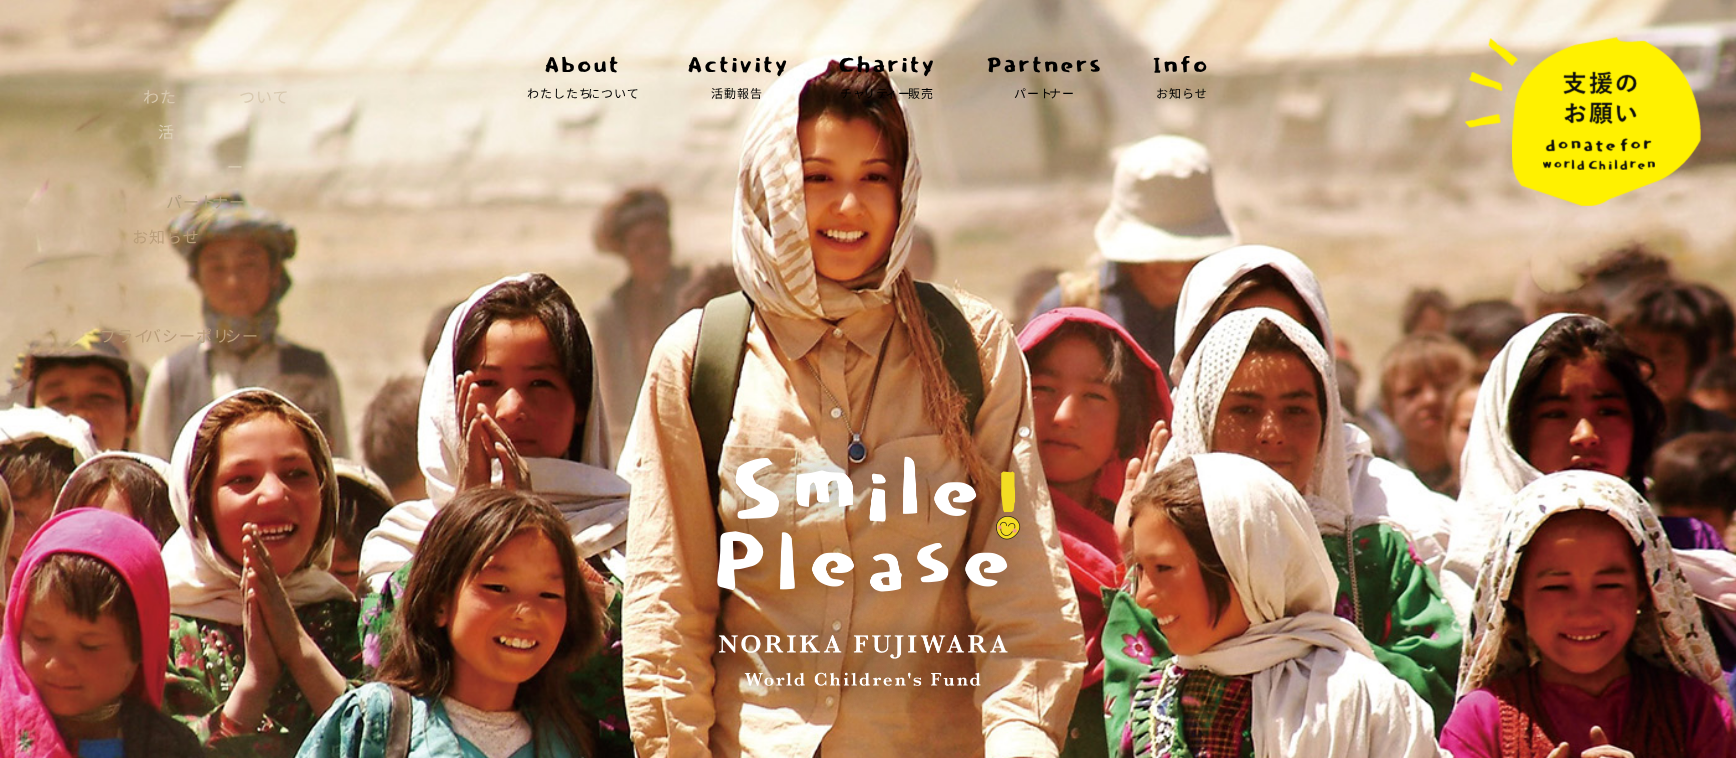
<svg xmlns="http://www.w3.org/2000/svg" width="1736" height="758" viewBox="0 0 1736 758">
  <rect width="100%" height="100%" fill="#fff"/>
  <image x="0" y="0" width="1736" height="758" href="img/1.png"/>
  <image x="693" y="434" width="351" height="279" href="img/2.png"/>
  <image x="1465" y="37" width="236" height="169" href="img/3.png"/>
  <text x="544" y="76" font-family="'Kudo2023'" font-size="30" letter-spacing="1" fill="#000">About</text>
  <text x="527" y="98" font-family="Noto Sans JP" font-size="12" letter-spacing="1" fill="#000">わたしたち</text>
  <text x="588" y="98" font-family="Noto Sans JP" font-size="12" letter-spacing="1" fill="#000">について</text>
  <text x="687" y="76" font-family="'Kudo2023'" font-size="30" letter-spacing="1" fill="#000">Activity</text>
  <text x="711" y="98" font-family="Noto Sans JP" font-size="12" letter-spacing="1" fill="#000">活動報告</text>
  <text x="838" y="76" font-family="'Kudo2023'" font-size="30" letter-spacing="1" fill="#000">Charity</text>
  <text x="840" y="98" font-family="Noto Sans JP" font-size="12" letter-spacing="1" fill="#000">チャ</text>
  <text x="863" y="98" font-family="Noto Sans JP" font-size="12" letter-spacing="1" fill="#000">リテ</text>
  <text x="885" y="98" font-family="Noto Sans JP" font-size="12" letter-spacing="1" fill="#000">ィー</text>
  <text x="908" y="98" font-family="Noto Sans JP" font-size="12" letter-spacing="1" fill="#000">販売</text>
  <text x="986" y="76" font-family="'Kudo2023'" font-size="30" letter-spacing="1" fill="#000">Partners</text>
  <text x="1014" y="98" font-family="Noto Sans JP" font-size="12" letter-spacing="1" fill="#000">パート</text>
  <text x="1049" y="98" font-family="Noto Sans JP" font-size="12" letter-spacing="1" fill="#000">ナー</text>
  <text x="1152" y="76" font-family="'Kudo2023'" font-size="30" letter-spacing="1" fill="#000">Info</text>
  <text x="1156" y="98" font-family="Noto Sans JP" font-size="12" letter-spacing="1" fill="#000">お知らせ</text>
  <g font-family="Noto Sans JP" font-size="16" letter-spacing="1" fill="#d8c9b0">
    <text x="143" y="103">わた</text>
    <text x="239" y="103">ついて</text>
  </g>
  <g font-family="Noto Sans JP" font-size="16" letter-spacing="1" fill="#ddd0b7">
    <text x="158" y="138">活</text>
    <text x="227" y="173">ー</text>
  </g>
  <text x="166" y="208" font-family="Noto Sans JP" font-size="16" letter-spacing="1" fill="#b09f7e">パート</text>
  <text x="212" y="208" font-family="Noto Sans JP" font-size="16" letter-spacing="1" fill="#b09f7e">ナー</text>
  <g font-family="Noto Sans JP" font-size="16" letter-spacing="1" fill="#ba9e7b">
    <text x="132" y="243">お知らせ</text>
    <text x="100" y="342">プライ</text>
    <text x="145" y="342">バシーポリ</text>
    <text x="225" y="342">シー</text>
  </g>
</svg>
